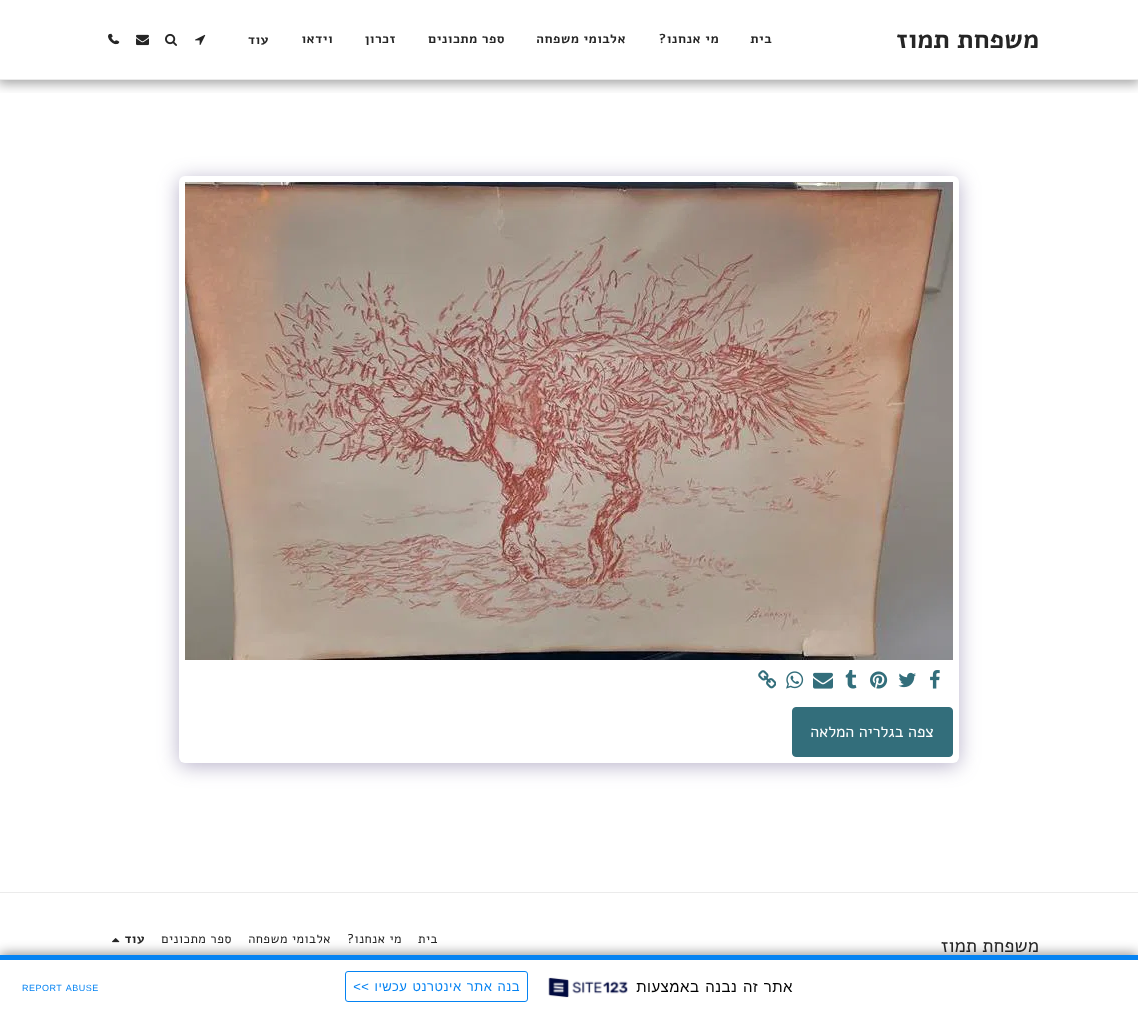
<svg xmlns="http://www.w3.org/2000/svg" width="1138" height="1015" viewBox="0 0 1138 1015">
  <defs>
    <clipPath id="clip1"><path d="M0 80h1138v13H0z"/></clipPath>
  </defs>
  <rect width="100%" height="100%" fill="#fff"/>
  <g clip-path="url(#clip1)">
    <path d="M-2 0h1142v84H-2z" fill="#00000059" filter="blur(6px)"/>
  </g>
  <path d="M0 79h1138v1H0z" fill="#ebebeb"/>
  <image x="195" y="34" width="11" height="11" href="img/1.png"/>
  <image x="165" y="33" width="12" height="13" href="img/2.png"/>
  <image x="136" y="34" width="13" height="12" href="img/3.png"/>
  <image x="108" y="34" width="11" height="11" href="img/4.png"/>
  <image x="109" y="33" width="11" height="11" href="img/5.png"/>
  <rect x="179" y="179" width="780" height="587" rx="6" fill="#4d3f7a66" filter="blur(10px)"/>
  <rect x="179" y="176" width="780" height="587" rx="6" fill="#fff"/>
  <image x="185" y="182" width="768" height="478" href="img/6.png"/>
  <image x="930" y="670" width="10" height="19" href="img/7.png"/>
  <image x="898" y="672" width="18" height="16" href="img/8.png"/>
  <image x="870" y="671" width="18" height="18" href="img/9.png"/>
  <image x="845" y="670" width="12" height="19" href="img/10.png"/>
  <image x="813" y="672" width="20" height="17" href="img/11.png"/>
  <image x="786" y="671" width="18" height="18" href="img/12.png"/>
  <image x="758" y="670" width="18" height="19" href="img/13.png"/>
  <rect x="792.5" y="707.5" width="160" height="49" rx="3.5" fill="#336e7b" stroke="#336e7b"/>
  <path d="M0 892h1138v1H0z" fill="#ebebeb"/>
  <image x="112" y="938" width="8" height="5" href="img/14.png"/>
  <path d="M0 953h1138v60H0z" fill="#00000066" filter="blur(6px)"/>
  <path d="M0 960h1138v55H0z" fill="#fff"/>
  <path d="M0 955h1138v5H0z" fill="#0583f2"/>
  <image x="548" y="977" width="80" height="21" href="img/15.png"/>
  <rect x="345.5" y="971.5" width="182" height="30" rx="2.5" fill="none" stroke="#0583f2"/>
  <text x="1039" y="48" font-family="Alef" font-size="26" font-weight="bold" direction="rtl" fill="#252525">משפחת תמוז</text>
  <g font-family="Alef" font-size="13" font-weight="bold" letter-spacing="0.5" direction="rtl" fill="#252525">
    <text x="772" y="43">בית</text>
    <text x="719" y="43">מי אנחנו?</text>
    <text x="626" y="43">אלבומי משפחה</text>
    <text x="505" y="43">ספר מתכונים</text>
    <text x="396" y="43">זכרון</text>
    <text x="333" y="43">וידאו</text>
    <text x="269" y="44">עוד</text>
  </g>
  <text x="934" y="737" font-family="Alef" font-size="16" direction="rtl" fill="#fff">צפה בגלריה המלאה</text>
  <g font-family="Alef" font-size="12.75" letter-spacing="0.5" direction="rtl" fill="#252525">
    <text x="438" y="943">בית</text>
    <text x="402" y="943">מי אנחנו?</text>
    <text x="331" y="943">אלבומי משפחה</text>
    <text x="232" y="943">ספר מתכונים</text>
  </g>
  <text x="145" y="943" font-family="Alef" font-size="12.75" font-weight="bold" letter-spacing="0.5" direction="rtl" fill="#252525">עוד</text>
  <text x="1039" y="952" font-family="Alef" font-size="19.25" direction="rtl" fill="#252525">משפחת תמוז</text>
  <text x="793" y="992" word-spacing="1" font-family="Liberation Sans" font-size="15" letter-spacing="0.5" direction="rtl" fill="#000">אתר זה נבנה באמצעות</text>
  <text x="520" y="991" word-spacing="1" font-family="Liberation Sans" font-size="13" letter-spacing="0.5" direction="rtl" fill="#0583f2">בנה אתר אינטרנט עכשיו &gt;&gt;</text>
  <text x="22" y="991" word-spacing="1" font-family="Liberation Sans" font-size="9" letter-spacing="0.5" fill="#0583f2">REPORT ABUSE</text>
</svg>
